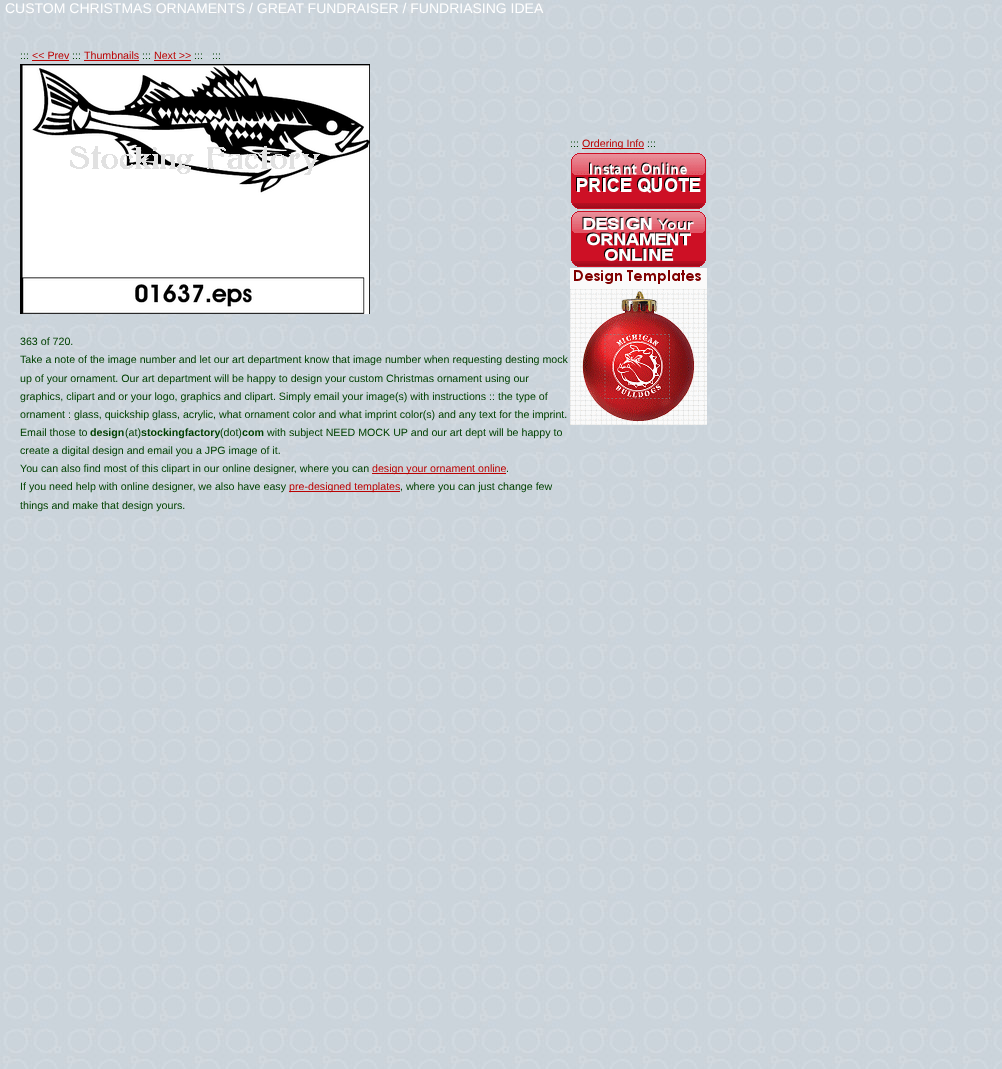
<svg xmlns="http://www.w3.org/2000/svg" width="1002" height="1069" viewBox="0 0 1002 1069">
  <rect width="100%" height="100%" fill="#fff"/>
  <image x="0" y="0" width="1002" height="1069" href="img/1.png"/>
  <path d="M32 60h37v1H32z" fill="#bb0202"/>
  <path d="M84 60h55v1H84z" fill="#bb0202"/>
  <path d="M154 60h37v1H154z" fill="#bb0202"/>
  <path d="M582 148h62v1H582z" fill="#bb0202"/>
  <image x="571" y="153" width="135" height="56" href="img/2.png"/>
  <image x="571" y="211" width="135" height="56" href="img/3.png"/>
  <image x="570" y="268" width="137" height="157" href="img/4.png"/>
  <image x="20" y="64" width="350" height="250" href="img/5.png"/>
  <path d="M372 473h134v1H372z" fill="#bb0202"/>
  <path d="M289 491h111v1H289z" fill="#bb0202"/>
  <text x="5" y="13" font-family="Liberation Sans" font-size="14" fill="#fff">CUSTOM CHRISTMAS ORNAMENTS / GREAT FUNDRAISER / FUNDRIASING IDEA</text>
  <text x="20" y="59" font-family="Liberation Sans" font-size="10.67" fill="#004000">:::</text>
  <text x="32" y="59" font-family="Liberation Sans" font-size="10.67" fill="#bb0202">&lt;&lt; Prev</text>
  <text x="72" y="59" font-family="Liberation Sans" font-size="10.67" fill="#004000">:::</text>
  <text x="84" y="59" font-family="Liberation Sans" font-size="10.67" fill="#bb0202">Thumbnails</text>
  <text x="142" y="59" font-family="Liberation Sans" font-size="10.67" fill="#004000">:::</text>
  <text x="154" y="59" font-family="Liberation Sans" font-size="10.67" fill="#bb0202">Next &gt;&gt;</text>
  <g font-family="Liberation Sans" font-size="10.67" fill="#004000">
    <text x="194" y="59">:::</text>
    <text x="212" y="59">:::</text>
    <text x="570" y="147">:::</text>
  </g>
  <text x="582" y="147" font-family="Liberation Sans" font-size="10.67" fill="#bb0202">Ordering Info</text>
  <g font-family="Liberation Sans" font-size="10.67" fill="#004000">
    <text x="647" y="147">:::</text>
    <text x="20" y="345">363 of 720.</text>
    <text x="20" y="363">Take a note of the image number and let our art department know that image number when requesting desting mock</text>
    <text x="20" y="382">up of your ornament. Our art department will be happy to design your custom Christmas ornament using our</text>
    <text x="20" y="400">graphics, clipart and or your logo, graphics and clipart. Simply email your image(s) with instructions :: the type of</text>
    <text x="20" y="418">ornament : glass, quickship glass, acrylic, what ornament color and what imprint color(s) and any text for the imprint.</text>
    <text x="20" y="436">Email those to</text>
  </g>
  <text x="90" y="436" font-family="Liberation Sans" font-size="10.67" font-weight="bold" fill="#004000">design</text>
  <text x="125" y="436" font-family="Liberation Sans" font-size="10.67" fill="#004000">(at)</text>
  <text x="141" y="436" font-family="Liberation Sans" font-size="10.67" font-weight="bold" fill="#004000">stockingfactory</text>
  <text x="220" y="436" font-family="Liberation Sans" font-size="10.67" fill="#004000">(dot)</text>
  <text x="242" y="436" font-family="Liberation Sans" font-size="10.67" font-weight="bold" fill="#004000">com</text>
  <g font-family="Liberation Sans" font-size="10.67" fill="#004000">
    <text x="267" y="436">with subject NEED MOCK UP and our art dept will be happy to</text>
    <text x="20" y="454">create a digital design and email you a JPG image of it.</text>
    <text x="20" y="472">You can also find most of this clipart in our online designer, where you can</text>
  </g>
  <text x="372" y="472" font-family="Liberation Sans" font-size="10.67" fill="#bb0202">design your ornament online</text>
  <g font-family="Liberation Sans" font-size="10.67" fill="#004000">
    <text x="506" y="472">.</text>
    <text x="20" y="490">If you need help with online designer, we also have easy</text>
  </g>
  <text x="289" y="490" font-family="Liberation Sans" font-size="10.67" fill="#bb0202">pre-designed templates</text>
  <g font-family="Liberation Sans" font-size="10.67" fill="#004000">
    <text x="400" y="490">, where you can just change few</text>
    <text x="20" y="509">things and make that design yours.</text>
  </g>
</svg>
